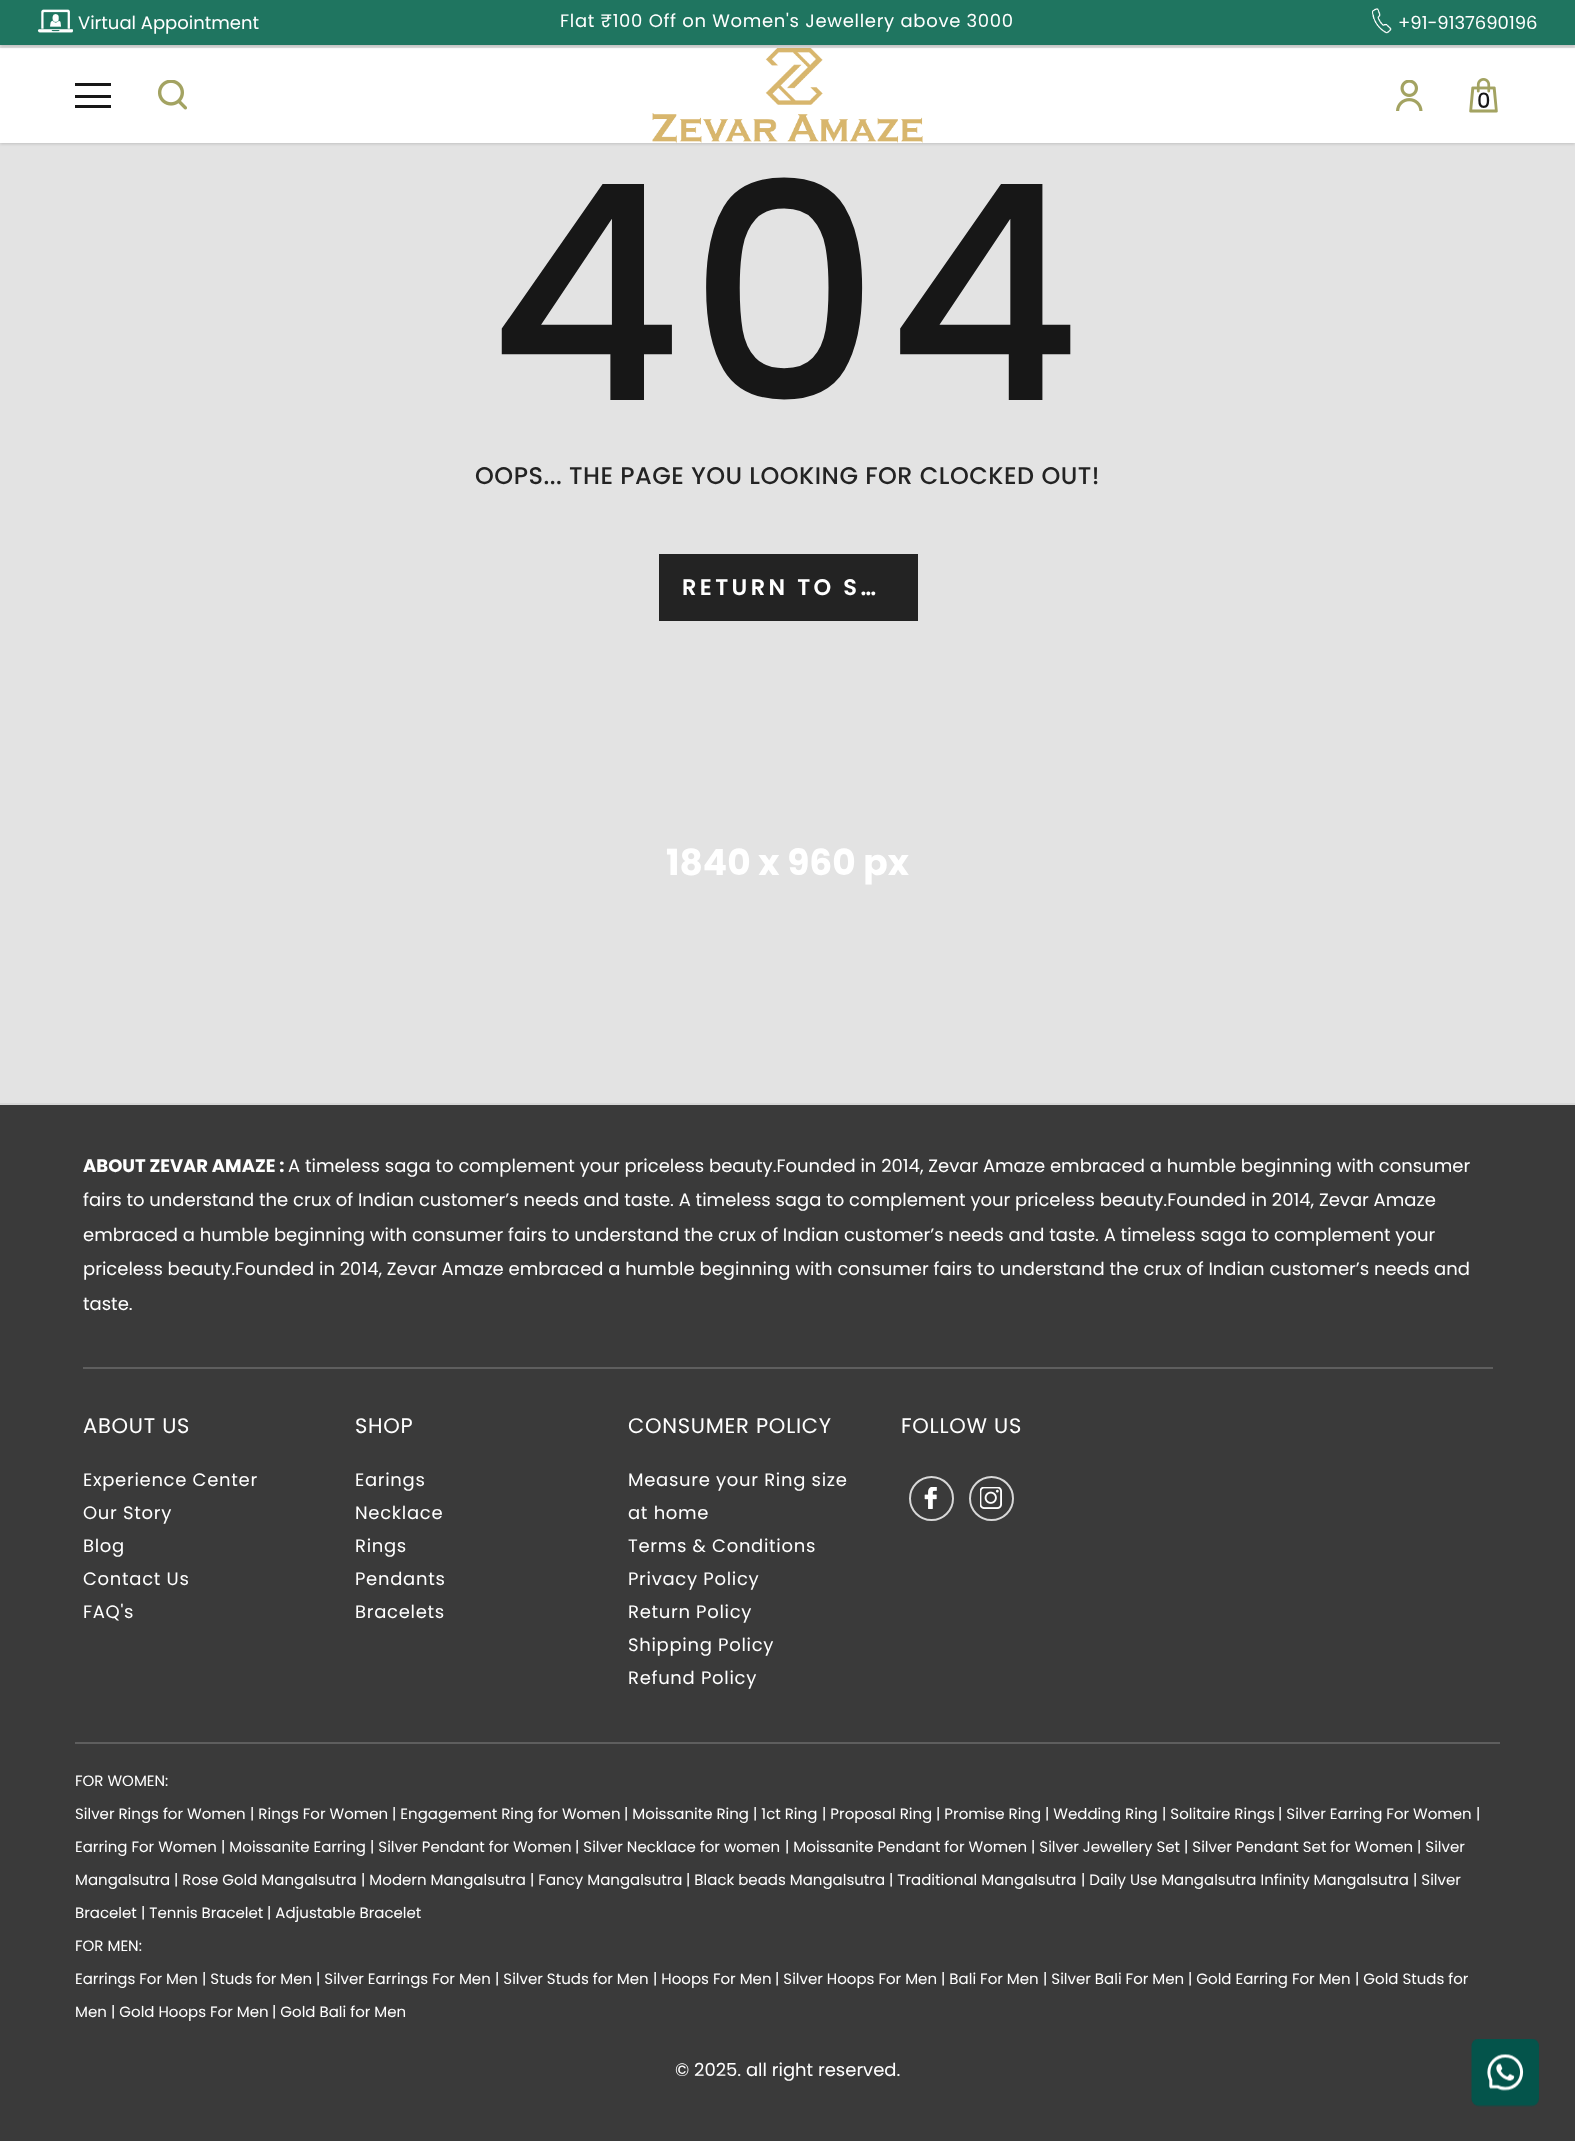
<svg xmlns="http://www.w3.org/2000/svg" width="1575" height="2141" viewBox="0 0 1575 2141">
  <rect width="100%" height="100%" fill="#3a3a3a"/>
  <path d="M0 45h1575v1058H0z" fill="#e3e3e3"/>
  <path d="M0 50h1575v94H0z" fill="#00000026" filter="blur(1.5px)"/>
  <path d="M0 48h1575v95H0z" fill="#fff"/>
  <image x="652" y="48" width="271" height="95" href="img/4.png"/>
  <path d="M0 2h1575v45H0z" fill="#00000026" filter="blur(1.5px)"/>
  <path d="M0 0h1575v45H0z" fill="#1f7560"/>
  <image x="37" y="9" width="36" height="24" href="img/1.png"/>
  <image x="1372" y="8" width="20" height="26" href="img/2.png"/>
  <path d="M75 83h36v3H75z" fill="#171717"/>
  <path d="M75 95h36v3H75z" fill="#171717"/>
  <path d="M75 105h36v3H75z" fill="#171717"/>
  <image x="158" y="80" width="29" height="30" href="img/3.png"/>
  <image x="1396" y="80" width="27" height="31" href="img/5.png"/>
  <image x="1469" y="78" width="29" height="35" href="img/6.png"/>
  <path d="M659 554h259v67H659z" fill="#232323"/>
  <path d="M0 1103h1575v2H0z" fill="#d7d7d7"/>
  <path d="M83 1367h1410v2H83z" fill="#5e5e5e"/>
  <circle cx="931.5" cy="1498.5" r="21.5" fill="none" stroke="#d7d7d7" stroke-width="2"/>
  <image x="924" y="1487" width="13" height="22" href="img/7.png"/>
  <circle cx="991.5" cy="1498.5" r="21.5" fill="none" stroke="#d7d7d7" stroke-width="2"/>
  <image x="980" y="1487" width="22" height="22" href="img/8.png"/>
  <path d="M75 1742h1425v2H75z" fill="#5e5e5e"/>
  <image x="1471" y="2039" width="68" height="68" href="img/9.png"/>
  <text x="78" y="29" font-family="Poppins" font-size="18" fill="#fff">Virtual Appointment</text>
  <text x="560" y="27" font-family="Poppins" font-size="18" letter-spacing="0.7" fill="#fff">Flat ₹100 Off on Women's Jewellery above 3000</text>
  <text x="1398" y="29" font-family="Poppins" font-size="18" fill="#fff">+91-9137690196</text>
  <text x="1477" y="108" font-family="Poppins" font-size="21" font-weight="500" fill="#171717">0</text>
  <text x="488" y="400" font-family="Poppins" font-size="300" font-weight="500" letter-spacing="6" fill="#171717">404</text>
  <text x="475" y="484" font-family="Poppins" font-size="24" font-weight="500" letter-spacing="0.5" fill="#232323">OOPS... THE PAGE YOU LOOKING FOR CLOCKED OUT!</text>
  <text x="682" y="595" font-family="Poppins" font-size="22.5" font-weight="600" letter-spacing="3.4" fill="#fff">RETURN TO S…</text>
  <text x="666" y="875" font-family="Poppins" font-size="36" font-weight="bold" fill="#fff">1840 x 960 px</text>
  <text x="83" y="1172" font-family="Poppins" font-size="18" font-weight="bold" fill="#fff">ABOUT ZEVAR AMAZE :</text>
  <g font-family="Poppins" font-size="18" fill="#fff">
    <text x="288" y="1172">A timeless saga to complement your priceless beauty.Founded in 2014, Zevar Amaze embraced a humble beginning with consumer</text>
    <text x="83" y="1206">fairs to understand the crux of Indian customer’s needs and taste. A timeless saga to complement your priceless beauty.Founded in 2014, Zevar Amaze</text>
    <text x="83" y="1241">embraced a humble beginning with consumer fairs to understand the crux of Indian customer’s needs and taste. A timeless saga to complement your</text>
    <text x="83" y="1275">priceless beauty.Founded in 2014, Zevar Amaze embraced a humble beginning with consumer fairs to understand the crux of Indian customer’s needs and</text>
    <text x="83" y="1310">taste.</text>
  </g>
  <text x="83" y="1433" font-family="Poppins" font-size="21" letter-spacing="0.75" fill="#fff">ABOUT US</text>
  <g font-family="Poppins" font-size="18" letter-spacing="0.7" fill="#fff">
    <text x="83" y="1486">Experience Center</text>
    <text x="83" y="1519">Our Story</text>
    <text x="83" y="1552">Blog</text>
    <text x="83" y="1585">Contact Us</text>
    <text x="83" y="1618">FAQ's</text>
  </g>
  <text x="355" y="1433" font-family="Poppins" font-size="21" letter-spacing="0.75" fill="#fff">SHOP</text>
  <g font-family="Poppins" font-size="18" letter-spacing="0.7" fill="#fff">
    <text x="355" y="1486">Earings</text>
    <text x="355" y="1519">Necklace</text>
    <text x="355" y="1552">Rings</text>
    <text x="355" y="1585">Pendants</text>
    <text x="355" y="1618">Bracelets</text>
  </g>
  <text x="628" y="1433" font-family="Poppins" font-size="21" letter-spacing="0.75" fill="#fff">CONSUMER POLICY</text>
  <g font-family="Poppins" font-size="18" letter-spacing="0.7" fill="#fff">
    <text x="628" y="1486">Measure your Ring size</text>
    <text x="628" y="1519">at home</text>
    <text x="628" y="1552">Terms &amp; Conditions</text>
    <text x="628" y="1585">Privacy Policy</text>
    <text x="628" y="1618">Return Policy</text>
    <text x="628" y="1651">Shipping Policy</text>
    <text x="628" y="1684">Refund Policy</text>
  </g>
  <text x="901" y="1433" font-family="Poppins" font-size="21" letter-spacing="0.75" fill="#fff">FOLLOW US</text>
  <g font-family="Poppins" font-size="15" fill="#fff">
    <text x="75" y="1786">FOR WOMEN:</text>
    <text x="75" y="1819">Silver Rings for Women</text>
    <text x="250" y="1819">| Rings For Women</text>
    <text x="392" y="1819">| Engagement Ring for Women</text>
    <text x="624" y="1819">| Moissanite Ring</text>
    <text x="753" y="1819">| 1ct Ring</text>
    <text x="822" y="1819">| Proposal Ring</text>
    <text x="936" y="1819">| Promise Ring</text>
    <text x="1045" y="1819">| Wedding Ring</text>
    <text x="1162" y="1819">| Solitaire Rings</text>
    <text x="1278" y="1819">| Silver Earring For Women</text>
    <text x="1476" y="1819">|</text>
    <text x="75" y="1852">Earring For Women</text>
    <text x="221" y="1852">| Moissanite Earring</text>
    <text x="370" y="1852">| Silver Pendant for Women</text>
    <text x="575" y="1852">| Silver Necklace for women</text>
    <text x="785" y="1852">| Moissanite Pendant for Women</text>
    <text x="1031" y="1852">| Silver Jewellery Set</text>
    <text x="1184" y="1852">| Silver Pendant Set for Women</text>
    <text x="1417" y="1852">| Silver</text>
    <text x="75" y="1885">Mangalsutra</text>
    <text x="174" y="1885">| Rose Gold Mangalsutra</text>
    <text x="361" y="1885">| Modern Mangalsutra</text>
    <text x="530" y="1885">| Fancy Mangalsutra</text>
    <text x="686" y="1885">| Black beads Mangalsutra</text>
    <text x="889" y="1885">| Traditional Mangalsutra</text>
    <text x="1081" y="1885">| Daily Use Mangalsutra Infinity Mangalsutra</text>
    <text x="1413" y="1885">| Silver</text>
    <text x="75" y="1918">Bracelet</text>
    <text x="141" y="1918">| Tennis Bracelet</text>
    <text x="267" y="1918">| Adjustable Bracelet</text>
    <text x="75" y="1951">FOR MEN:</text>
    <text x="75" y="1984">Earrings For Men</text>
    <text x="202" y="1984">| Studs for Men</text>
    <text x="316" y="1984">| Silver Earrings For Men</text>
    <text x="495" y="1984">| Silver Studs for Men</text>
    <text x="653" y="1984">| Hoops For Men</text>
    <text x="775" y="1984">| Silver Hoops For Men</text>
    <text x="941" y="1984">| Bali For Men</text>
    <text x="1043" y="1984">| Silver Bali For Men</text>
    <text x="1188" y="1984">| Gold Earring For Men</text>
    <text x="1355" y="1984">| Gold Studs for</text>
    <text x="75" y="2017">Men</text>
    <text x="111" y="2017">| Gold Hoops For Men</text>
    <text x="272" y="2017">| Gold Bali for Men</text>
  </g>
  <text x="675" y="2076" font-family="Poppins" font-size="18" fill="#fff">© 2025. all right reserved.</text>
</svg>
